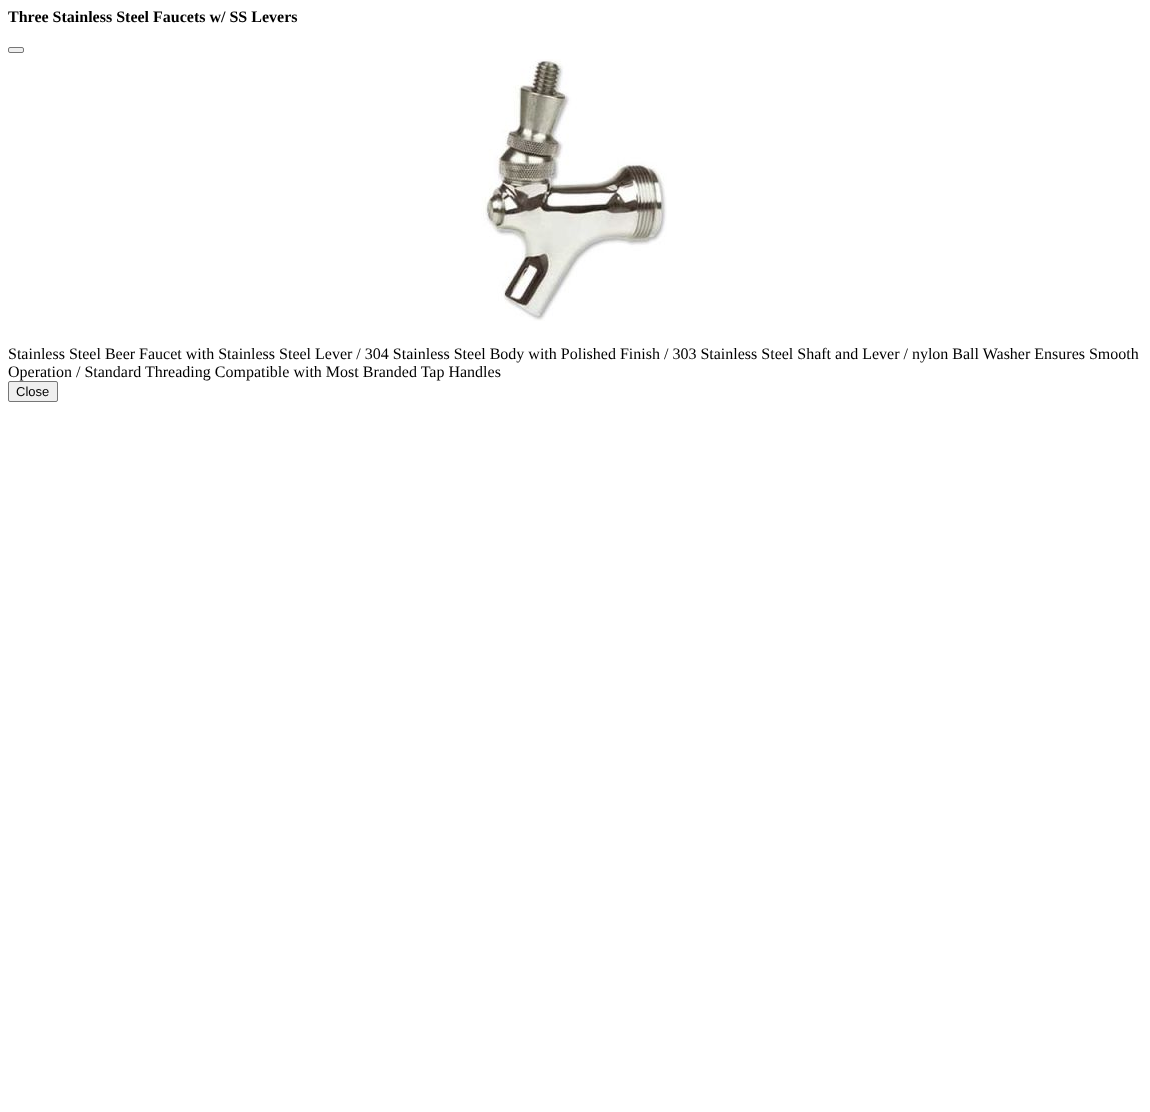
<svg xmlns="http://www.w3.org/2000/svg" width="1150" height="1112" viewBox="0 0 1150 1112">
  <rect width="100%" height="100%" fill="#fff"/>
  <rect x="8.5" y="47.5" width="15" height="5" rx="1.5" fill="#efefef" stroke="#767676"/>
  <image x="481" y="59" width="186" height="262" href="img/1.png"/>
  <rect x="8.5" y="381.5" width="49" height="20" rx="1.5" fill="#efefef" stroke="#767676"/>
  <text x="8" y="22" font-family="Liberation Serif" font-size="16" font-weight="bold" fill="#000">Three Stainless Steel Faucets w/ SS Levers</text>
  <g font-family="Liberation Serif" font-size="16" fill="#000">
    <text x="8" y="359">Stainless Steel Beer Faucet with Stainless Steel Lever / 304 Stainless Steel Body with Polished Finish / 303 Stainless Steel Shaft and Lever / nylon Ball Washer Ensures Smooth</text>
    <text x="8" y="377">Operation / Standard Threading Compatible with Most Branded Tap Handles</text>
  </g>
  <text x="16" y="396" font-family="Liberation Sans" font-size="13" fill="#000">Close</text>
</svg>
